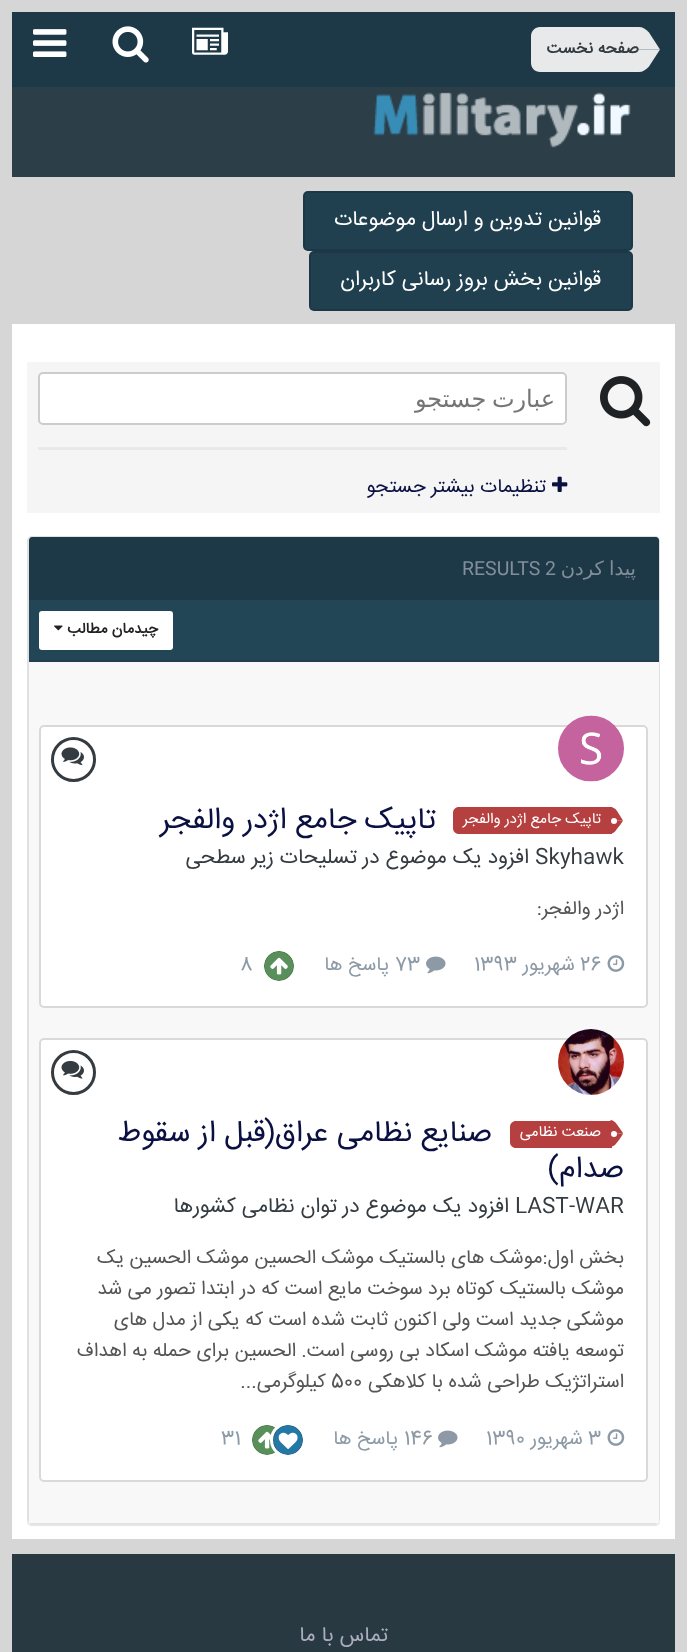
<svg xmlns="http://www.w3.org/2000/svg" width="687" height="1652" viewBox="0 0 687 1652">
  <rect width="100%" height="100%" fill="#d6d6d6"/>
  <path d="M12 12h663v75H12z" fill="#1d3947"/>
  <path d="M540 27H639V72H540C535 72 531 68 531 63V36C531 31 535 27 540 27Z" fill="#e8e9eb"/>
  <path d="M660 49.5H639V27C642.5 27 646 29 649 32.5Z" fill="#e8e9eb"/>
  <path d="M649 66.5C646 70 642.5 72 639 72V49.5H660Z" fill="#e8e9eb"/>
  <image x="192" y="27" width="36" height="28" href="img/1.png"/>
  <image x="112" y="26" width="37" height="37" href="img/2.png"/>
  <image x="33" y="29" width="34" height="28" href="img/3.png"/>
  <path d="M12 87h663v90H12z" fill="#2c3e48"/>
  <image x="373" y="92" width="258" height="56" href="img/4.png"/>
  <rect x="303" y="191" width="330" height="60" rx="5" fill="#203f4f"/>
  <rect x="304" y="192" width="328" height="58" rx="4" fill="none" stroke="#0000001a" stroke-width="2"/>
  <rect x="309" y="251" width="324" height="60" rx="5" fill="#203f4f"/>
  <rect x="310" y="252" width="322" height="58" rx="4" fill="none" stroke="#0000001a" stroke-width="2"/>
  <path d="M12 324h663v1215H12z" fill="#fff"/>
  <path d="M27 362h633v151H27z" fill="#f5f5f5"/>
  <image x="600" y="376" width="51" height="51" href="img/5.png"/>
  <rect x="38" y="372" width="529" height="53" rx="5" fill="#fff"/>
  <rect x="39" y="373" width="527" height="51" rx="4" fill="none" stroke="#00000033" stroke-width="2"/>
  <path d="M38 447h529v3H38z" fill="#e9e9e9"/>
  <image x="552" y="476" width="16" height="16" href="img/6.png"/>
  <path d="M27 1520V1521C27 1524 29 1526 32 1526H655C658 1526 660 1524 660 1521V1520C660 1522 658 1524 656 1524H32C29 1524 27 1522 27 1520Z" fill="#e6e6e6"/>
  <rect x="28" y="537" width="631" height="986" rx="4" fill="none" stroke="#e0e0e0" stroke-width="2"/>
  <path d="M32 537H656C657.5 537 659 538.5 659 540V600H29V540C29 538.5 30.5 537 32 537Z" fill="#1d3947"/>
  <path d="M29 600h630v60H29z" fill="#234657"/>
  <path d="M29 660h630v2H29z" fill="#203f4e"/>
  <rect x="39" y="611" width="134" height="39" rx="3" fill="#fff"/>
  <image x="54" y="625" width="9" height="6" href="img/7.png"/>
  <path d="M29 662h630v861H29z" fill="#f8f8f8"/>
  <rect x="40" y="726" width="607" height="281" rx="4" fill="#fff" stroke="#d9d9d9" stroke-width="2"/>
  <circle cx="591" cy="749" r="33" fill="#fff"/>
  <image x="558" y="715" width="66" height="67" href="img/8.png"/>
  <circle cx="73.5" cy="759.5" r="21" fill="none" stroke="#353c41" stroke-width="3"/>
  <image x="61" y="747" width="23" height="19" href="img/9.png"/>
  <path d="M459 807H612V834H459C455.5 834 453 831.5 453 828V813C453 809.5 455.5 807 459 807Z" fill="#b63f3f"/>
  <path d="M617 811L623 820.5H610.5L611 820H610.5V807C612.5 807 615 808 617 811Z" fill="#b63f3f"/>
  <path d="M611 821L610.5 820.5H623C622.5 822 616 830.5 614.5 832C613 833 612 833.5 610.5 833.5V820.5Z" fill="#b63f3f"/>
  <circle cx="614" cy="821" r="3" fill="#fff"/>
  <image x="607" y="955" width="18" height="17" href="img/10.png"/>
  <image x="426" y="956" width="20" height="18" href="img/11.png"/>
  <image x="264" y="951" width="30" height="30" href="img/12.png"/>
  <rect x="40" y="1039" width="607" height="442" rx="4" fill="#fff" stroke="#d9d9d9" stroke-width="2"/>
  <circle cx="591" cy="1062" r="33" fill="#fff"/>
  <image x="558" y="1029" width="66" height="66" href="img/13.png"/>
  <circle cx="73.5" cy="1072.5" r="21" fill="none" stroke="#353c41" stroke-width="3"/>
  <image x="61" y="1060" width="23" height="19" href="img/14.png"/>
  <path d="M516 1121H612V1148H516C512.5 1148 510 1145.5 510 1142V1127C510 1123.5 512.5 1121 516 1121Z" fill="#b63f3f"/>
  <path d="M617 1124.5L623 1133V1133.5H610.5L611 1133L610.5 1133.5V1120C612.5 1120 615 1121.5 617 1124.5Z" fill="#b63f3f"/>
  <path d="M611 1134L610.5 1133.5H623C622.5 1135.5 616 1144 615 1145C613.5 1146 612 1146.5 610.5 1146.5V1133.5Z" fill="#b63f3f"/>
  <circle cx="614" cy="1134" r="3" fill="#fff"/>
  <image x="607" y="1429" width="18" height="17" href="img/10.png"/>
  <image x="438" y="1430" width="20" height="18" href="img/11.png"/>
  <image x="252" y="1425" width="26" height="30" href="img/16.png"/>
  <circle cx="288" cy="1440" r="16.5" fill="none" stroke="#fff" stroke-width="3"/>
  <image x="273" y="1425" width="30" height="30" href="img/15.png"/>
  <path d="M12 1554h663v98H12z" fill="#283942"/>
  <text x="639" y="53" font-family="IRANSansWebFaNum" font-size="16.5" font-weight="bold" direction="rtl" fill="#353c41">صفحه نخست</text>
  <g font-family="IRANSansWebFaNum" font-size="21" direction="rtl" fill="#fff">
    <text x="601" y="225">قوانین تدوین و ارسال موضوعات</text>
    <text x="601" y="285">قوانین بخش بروز رسانی کاربران</text>
  </g>
  <text x="555" y="407" word-spacing="-2" font-family="DejaVu Sans" font-size="24" direction="rtl" fill="#757575">عبارت جستجو</text>
  <text x="546" y="492" font-family="IRANSansWebFaNum" font-size="19.5" direction="rtl" fill="#0b1042">تنظیمات بیشتر جستجو</text>
  <text x="636" y="575" word-spacing="-1" font-family="DejaVu Sans" font-size="19.5" direction="rtl" fill="#828e99">پیدا کردن</text>
  <text x="462" y="575" font-family="Roboto" font-size="19.5" fill="#828e99">RESULTS 2</text>
  <text x="158" y="633" font-family="IRANSansWebFaNum" font-size="15" font-weight="bold" direction="rtl" fill="#222">چیدمان مطالب</text>
  <text x="601" y="823" font-family="IRANSansWebFaNum" font-size="15" direction="rtl" fill="#fff">تاپیک جامع اژدر والفجر</text>
  <text x="436" y="828" font-family="IRANSansWebFaNum" font-size="30" direction="rtl" fill="#0b1042">تاپیک جامع اژدر والفجر</text>
  <text x="535" y="863" font-family="IRANSansWebFaNum" font-size="21" fill="#353c41">Skyhawk</text>
  <g font-family="IRANSansWebFaNum" font-size="21" direction="rtl" fill="#353c41">
    <text x="529" y="863">افزود یک موضوع در</text>
    <text x="357" y="863">تسلیحات زیر سطحی</text>
  </g>
  <text x="624" y="914" font-family="IRANSansWebFaNum" font-size="19.5" direction="rtl" fill="#555">اژدر والفجر:</text>
  <text x="580" y="970" font-family="IRANSansWebFaNum" font-size="19.5" fill="#8d9aa6">26</text>
  <text x="575" y="970" font-family="IRANSansWebFaNum" font-size="19.5" direction="rtl" fill="#8d9aa6">شهریور</text>
  <g font-family="IRANSansWebFaNum" font-size="19.5" fill="#8d9aa6">
    <text x="474" y="970">1393</text>
    <text x="395" y="970">73</text>
  </g>
  <text x="389" y="970" font-family="IRANSansWebFaNum" font-size="19.5" direction="rtl" fill="#8d9aa6">پاسخ ها</text>
  <text x="240" y="970" font-family="IRANSansWebFaNum" font-size="19.5" fill="#8d9aa6">8</text>
  <text x="601" y="1136" font-family="IRANSansWebFaNum" font-size="15" direction="rtl" fill="#fff">صنعت نظامی</text>
  <g font-family="IRANSansWebFaNum" font-size="30" direction="rtl" fill="#0b1042">
    <text x="492" y="1141">صنایع نظامی عراق(قبل از سقوط</text>
    <text x="624" y="1177">صدام)</text>
  </g>
  <text x="515" y="1212" font-family="IRANSansWebFaNum" font-size="21" fill="#353c41">LAST-WAR</text>
  <g font-family="IRANSansWebFaNum" font-size="21" direction="rtl" fill="#353c41">
    <text x="509" y="1212">افزود یک موضوع در</text>
    <text x="337" y="1212">توان نظامی کشورها</text>
  </g>
  <g font-family="IRANSansWebFaNum" font-size="19.5" direction="rtl" fill="#555">
    <text x="624" y="1263">بخش اول:موشک های بالستیک</text>
    <text x="374" y="1263">موشک الحسین</text>
    <text x="249" y="1263">موشک الحسین یک</text>
    <text x="624" y="1294">موشک بالستیک کوتاه برد سوخت مایع است که در ابتدا تصور می شد</text>
    <text x="624" y="1325">موشکی جدید است ولی اکنون ثابت شده است که یکی از مدل های</text>
    <text x="624" y="1356">توسعه یافته موشک اسکاد بی روسی است.</text>
    <text x="296" y="1356">الحسین برای حمله به اهداف</text>
    <text x="624" y="1387">استراتژیک طراحی شده با کلاهکی</text>
  </g>
  <text x="331" y="1387" font-family="IRANSansWebFaNum" font-size="19.5" fill="#555">500</text>
  <text x="326" y="1387" font-family="IRANSansWebFaNum" font-size="19.5" direction="rtl" fill="#555">کیلوگرمی...</text>
  <text x="588" y="1444" font-family="IRANSansWebFaNum" font-size="19.5" fill="#8d9aa6">3</text>
  <text x="583" y="1444" font-family="IRANSansWebFaNum" font-size="19.5" direction="rtl" fill="#8d9aa6">شهریور</text>
  <g font-family="IRANSansWebFaNum" font-size="19.5" fill="#8d9aa6">
    <text x="486" y="1444">1390</text>
    <text x="404" y="1444">146</text>
  </g>
  <text x="398" y="1444" font-family="IRANSansWebFaNum" font-size="19.5" direction="rtl" fill="#8d9aa6">پاسخ ها</text>
  <text x="221" y="1444" font-family="IRANSansWebFaNum" font-size="19.5" fill="#8d9aa6">31</text>
  <text x="388" y="1641" font-family="IRANSansWebFaNum" font-size="21" direction="rtl" fill="#aaadbf">تماس با ما</text>
</svg>
